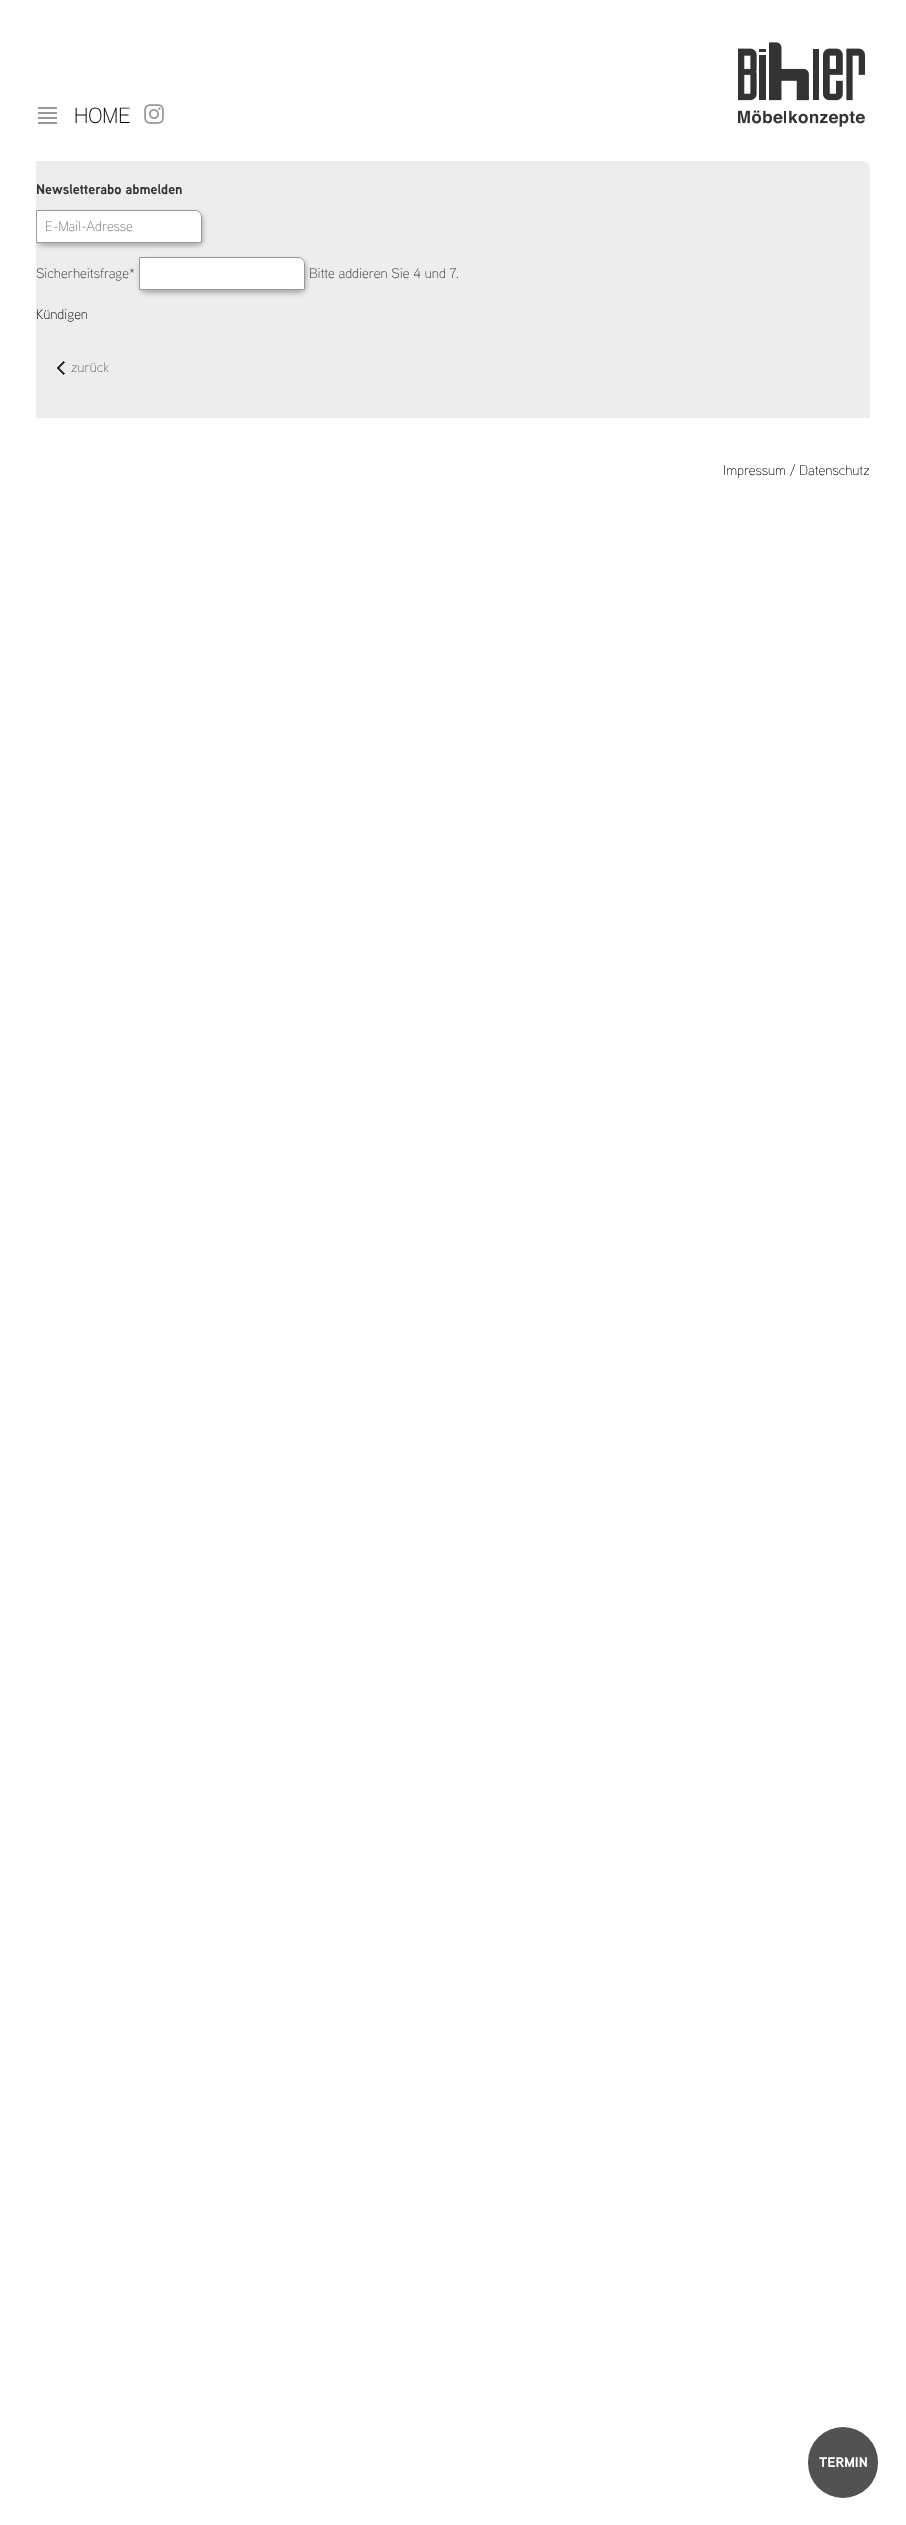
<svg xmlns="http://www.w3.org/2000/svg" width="906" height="2525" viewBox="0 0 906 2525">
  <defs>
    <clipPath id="clip1"><path d="M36 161H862C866.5 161 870 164.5 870 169V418H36Z"/></clipPath>
  </defs>
  <rect width="100%" height="100%" fill="#fff"/>
  <path d="M38 107h19v2H38z" fill="#999"/>
  <image x="144" y="104" width="20" height="20" href="img/1.png"/>
  <path d="M38 112h19v2H38z" fill="#999"/>
  <path d="M38 117h19v2H38z" fill="#999"/>
  <path d="M38 122h19v2H38z" fill="#999"/>
  <image x="738" y="42" width="127" height="85" href="img/2.png"/>
  <rect x="808" y="2427" width="70" height="71" rx="35" fill="#525252"/>
  <path d="M36 161H862C866.5 161 870 164.5 870 169V418H36Z" fill="#ededed"/>
  <g clip-path="url(#clip1)">
    <rect x="37" y="213" width="166" height="33" rx="7" fill="#aaa" filter="blur(2.5px)"/>
  </g>
  <path d="M36.5 210.5H195C198.5 210.5 201.5 213.5 201.5 217V242.5H36.5Z" fill="#fff" stroke="#999"/>
  <rect x="140" y="260" width="166" height="33" rx="7" fill="#aaa" filter="blur(2.5px)"/>
  <path d="M139.5 257.5H298C301.5 257.5 304.5 260.5 304.5 264V289.5H139.5Z" fill="#fff" stroke="#999"/>
  <image x="57" y="361" width="8" height="14" href="img/3.png"/>
  <text x="74" y="123" font-family="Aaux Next" font-size="22" font-weight="300" fill="#000">HOME</text>
  <text x="819" y="2467" font-family="Aaux Next" font-size="14" font-weight="bold" fill="#fff">TERMIN</text>
  <text x="36" y="194" font-family="Aaux Next" font-size="14" font-weight="bold" fill="#333">Newsletterabo abmelden</text>
  <text x="45" y="231" font-family="Aaux Next" font-size="14" font-weight="300" fill="#757575">E-Mail-Adresse</text>
  <g font-family="Aaux Next" font-size="14" font-weight="300" fill="#333">
    <text x="36" y="278">Sicherheitsfrage*</text>
    <text x="309" y="278">Bitte addieren Sie 4 und 7.</text>
  </g>
  <text x="36" y="319" font-family="Aaux Next" font-size="14" font-weight="300" fill="#000">Kündigen</text>
  <text x="71" y="372" font-family="Aaux Next" font-size="14" font-weight="300" fill="#666">zurück</text>
  <text x="723" y="475" font-family="Aaux Next" font-size="14" font-weight="300" fill="#000">Impressum / Datenschutz</text>
</svg>
